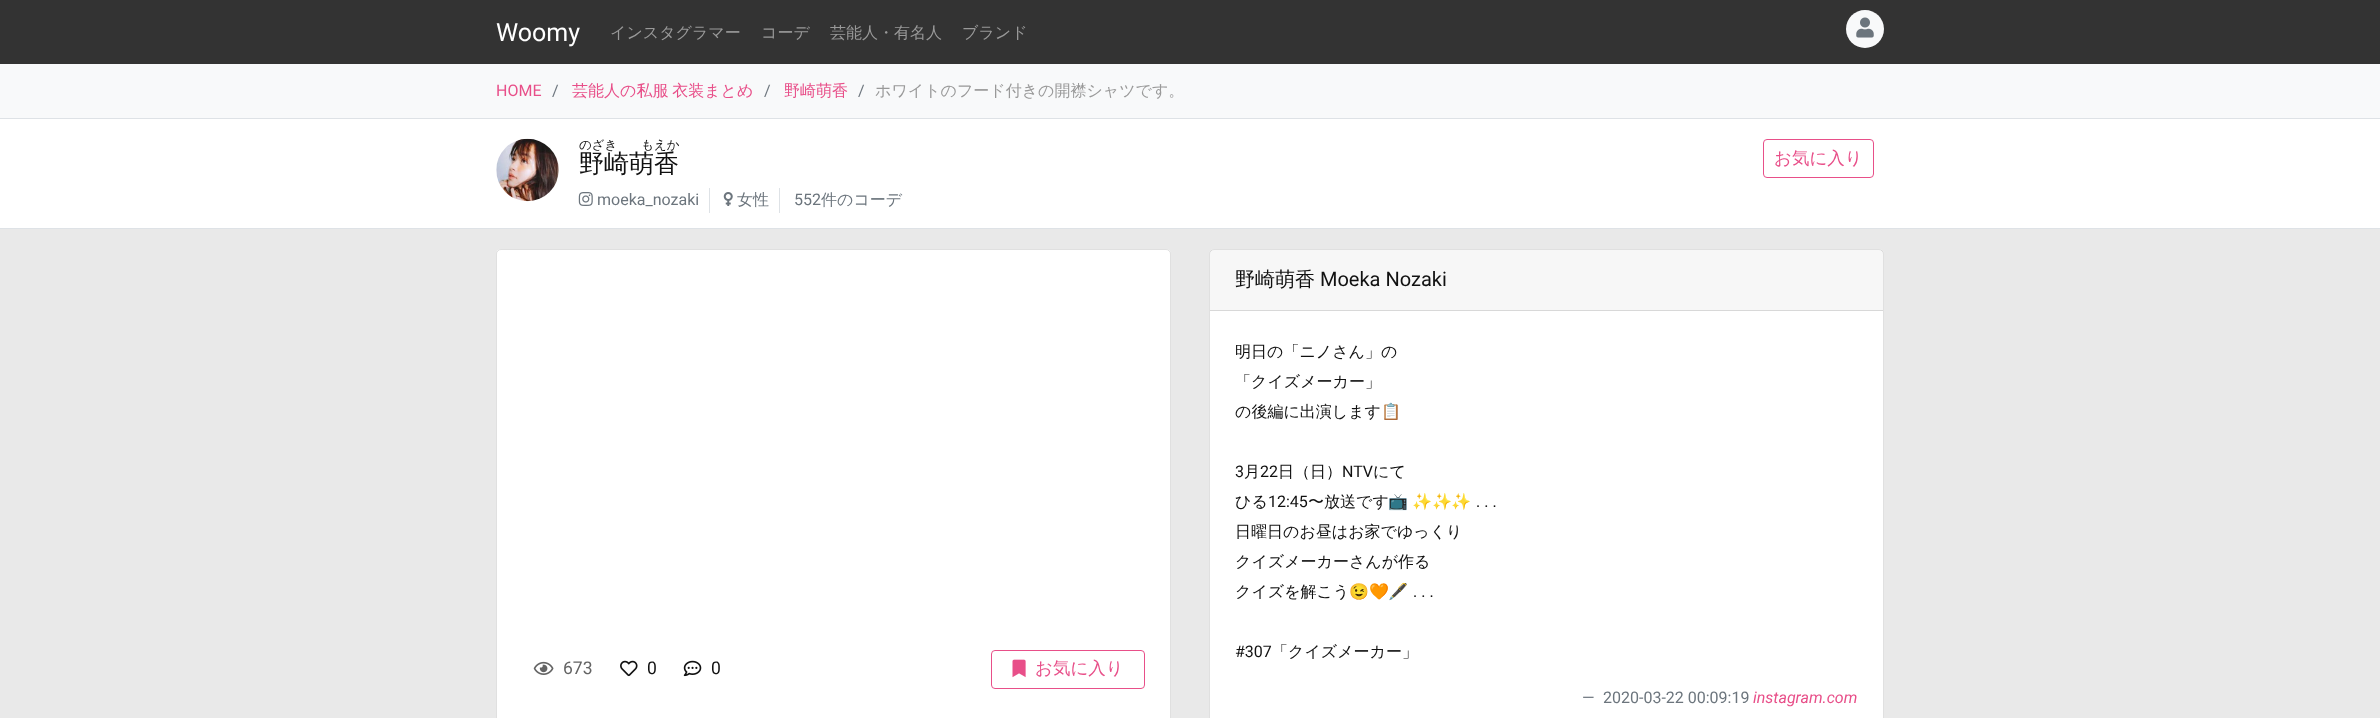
<svg xmlns="http://www.w3.org/2000/svg" width="2380" height="718" viewBox="0 0 2380 718">
  <rect width="100%" height="100%" fill="#e9e9e9"/>
  <path d="M0 0h2380v64H0z" fill="#333"/>
  <circle cx="1865" cy="29" r="19" fill="#f8f9fa"/>
  <image x="1856" y="17" width="18" height="21" href="img/1.png"/>
  <path d="M0 64h2380v54H0z" fill="#f8f9fa"/>
  <path d="M0 118h2380v1H0z" fill="#dee2e6"/>
  <path d="M0 119h2380v109H0z" fill="#fff"/>
  <path d="M0 228h2380v1H0z" fill="#dee2e6"/>
  <image x="496" y="138" width="63" height="64" href="img/2.png"/>
  <path d="M709 188h1v25H709z" fill="#dee2e6"/>
  <image x="578" y="192" width="15" height="14" href="img/3.png"/>
  <path d="M779 188h1v25H779z" fill="#dee2e6"/>
  <image x="723" y="192" width="10" height="14" href="img/4.png"/>
  <rect x="1763.5" y="139.5" width="110" height="38" rx="3.5" fill="none" stroke="#e84f89"/>
  <rect x="496" y="249" width="675" height="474" rx="5" fill="#fff"/>
  <rect x="496.5" y="249.5" width="674" height="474" rx="4.5" fill="none" stroke="#0000001f"/>
  <image x="533" y="661" width="21" height="14" href="img/5.png"/>
  <image x="620" y="660" width="18" height="17" href="img/6.png"/>
  <image x="683" y="660" width="19" height="17" href="img/7.png"/>
  <rect x="991.5" y="650.5" width="153" height="38" rx="3.5" fill="none" stroke="#e84f89"/>
  <image x="1012" y="659" width="14" height="19" href="img/8.png"/>
  <rect x="1209" y="249" width="675" height="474" rx="5" fill="#fff"/>
  <rect x="1209.5" y="249.5" width="674" height="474" rx="4.5" fill="none" stroke="#0000001f"/>
  <path d="M1210 250h673v60H1210z" fill="#00000008"/>
  <path d="M1210 310h673v1H1210z" fill="#d8d8d8"/>
  <text x="496" y="41" font-family="Roboto" font-size="25" fill="#fff">Woomy</text>
  <g font-family="WenQuanYi Zen Hei" font-size="16" font-weight="500" fill="#999">
    <text x="610" y="38">インスタグラマー</text>
    <text x="761" y="38">コーデ</text>
    <text x="830" y="38">芸能人・有名人</text>
    <text x="962" y="38">ブランド</text>
  </g>
  <text x="496" y="96" font-family="Roboto" font-size="16" fill="#e84f89">HOME</text>
  <text x="552" y="96" font-family="Roboto" font-size="16" fill="#6c757d">/</text>
  <text x="572" y="96" word-spacing="-1" font-family="WenQuanYi Zen Hei" font-size="16" font-weight="500" fill="#e84f89">芸能人の私服 衣装まとめ</text>
  <text x="764" y="96" font-family="Roboto" font-size="16" fill="#6c757d">/</text>
  <text x="784" y="96" font-family="WenQuanYi Zen Hei" font-size="16" font-weight="500" fill="#e84f89">野崎萌香</text>
  <text x="858" y="96" font-family="Roboto" font-size="16" fill="#6c757d">/</text>
  <text x="875" y="96" font-family="WenQuanYi Zen Hei" font-size="16" font-weight="500" fill="#999">ホワイトのフード付きの開襟シャツです。</text>
  <text x="579" y="149" word-spacing="20" font-family="WenQuanYi Zen Hei" font-size="12.5" font-weight="500" fill="#111">のざき もえか</text>
  <text x="579" y="172" font-family="WenQuanYi Zen Hei" font-size="25" font-weight="500" fill="#111">野崎萌香</text>
  <text x="597" y="205" font-family="Roboto" font-size="16" fill="#6c757d">moeka_nozaki</text>
  <text x="737" y="205" font-family="WenQuanYi Zen Hei" font-size="16" font-weight="500" fill="#6c757d">女性</text>
  <text x="794" y="205" font-family="Roboto" font-size="16" fill="#6c757d">552</text>
  <text x="821" y="205" font-family="WenQuanYi Zen Hei" font-size="16" font-weight="500" fill="#6c757d">件のコーデ</text>
  <text x="1774" y="164" font-family="WenQuanYi Zen Hei" font-size="17.5" font-weight="500" fill="#e84f89">お気に入り</text>
  <text x="563" y="674" font-family="Roboto" font-size="17.5" fill="#646464">673</text>
  <g font-family="Roboto" font-size="17.5" fill="#111">
    <text x="647" y="674">0</text>
    <text x="711" y="674">0</text>
  </g>
  <text x="1035" y="674" font-family="WenQuanYi Zen Hei" font-size="17.5" font-weight="500" fill="#e84f89">お気に入り</text>
  <text x="1235" y="286" font-family="WenQuanYi Zen Hei" font-size="20" font-weight="500" fill="#111">野崎萌香</text>
  <text x="1320" y="286" font-family="Roboto" font-size="20" fill="#111">Moeka Nozaki</text>
  <g font-family="WenQuanYi Zen Hei" font-size="16" font-weight="500" fill="#111">
    <text x="1235" y="357">明日の「ニノさん」の</text>
    <text x="1235" y="387">「クイズメーカー」</text>
    <text x="1235" y="417">の後編に出演します</text>
  </g>
  <text x="1381" y="417" font-family="Noto Color Emoji" font-size="16" fill="#111">📋</text>
  <text x="1235" y="477" font-family="Roboto" font-size="16" fill="#111">3</text>
  <text x="1244" y="477" font-family="WenQuanYi Zen Hei" font-size="16" font-weight="500" fill="#111">月</text>
  <text x="1260" y="477" font-family="Roboto" font-size="16" fill="#111">22</text>
  <text x="1278" y="477" font-family="WenQuanYi Zen Hei" font-size="16" font-weight="500" fill="#111">日（日）</text>
  <text x="1342" y="477" font-family="Roboto" font-size="16" fill="#111">NTV</text>
  <g font-family="WenQuanYi Zen Hei" font-size="16" font-weight="500" fill="#111">
    <text x="1373" y="477">にて</text>
    <text x="1235" y="507">ひる</text>
  </g>
  <text x="1268" y="507" font-family="Roboto" font-size="16" fill="#111">12:45</text>
  <text x="1308" y="507" font-family="WenQuanYi Zen Hei" font-size="16" font-weight="500" fill="#111">〜放送です</text>
  <g font-family="Noto Color Emoji" font-size="16" fill="#111">
    <text x="1388" y="507">📺</text>
    <text x="1412" y="507">✨✨✨</text>
  </g>
  <text x="1476" y="507" font-family="Roboto" font-size="16" fill="#111">. . .</text>
  <g font-family="WenQuanYi Zen Hei" font-size="16" font-weight="500" fill="#111">
    <text x="1235" y="537">日曜日のお昼はお家でゆっくり</text>
    <text x="1235" y="567">クイズメーカーさんが作る</text>
    <text x="1235" y="597">クイズを解こう</text>
  </g>
  <text x="1349" y="597" font-family="Noto Color Emoji" font-size="16" fill="#111">😉🧡🖋</text>
  <g font-family="Roboto" font-size="16" fill="#111">
    <text x="1413" y="597">. . .</text>
    <text x="1235" y="657">#307</text>
  </g>
  <text x="1272" y="657" font-family="WenQuanYi Zen Hei" font-size="16" font-weight="500" fill="#111">「クイズメーカー」</text>
  <g font-family="Roboto" font-size="16" fill="#6c757d">
    <text x="1582" y="703">—</text>
    <text x="1603" y="703">2020-03-22 00:09:19</text>
  </g>
  <text x="1753" y="703" font-family="Roboto" font-size="16" font-style="italic" fill="#e84f89">instagram.com</text>
</svg>
